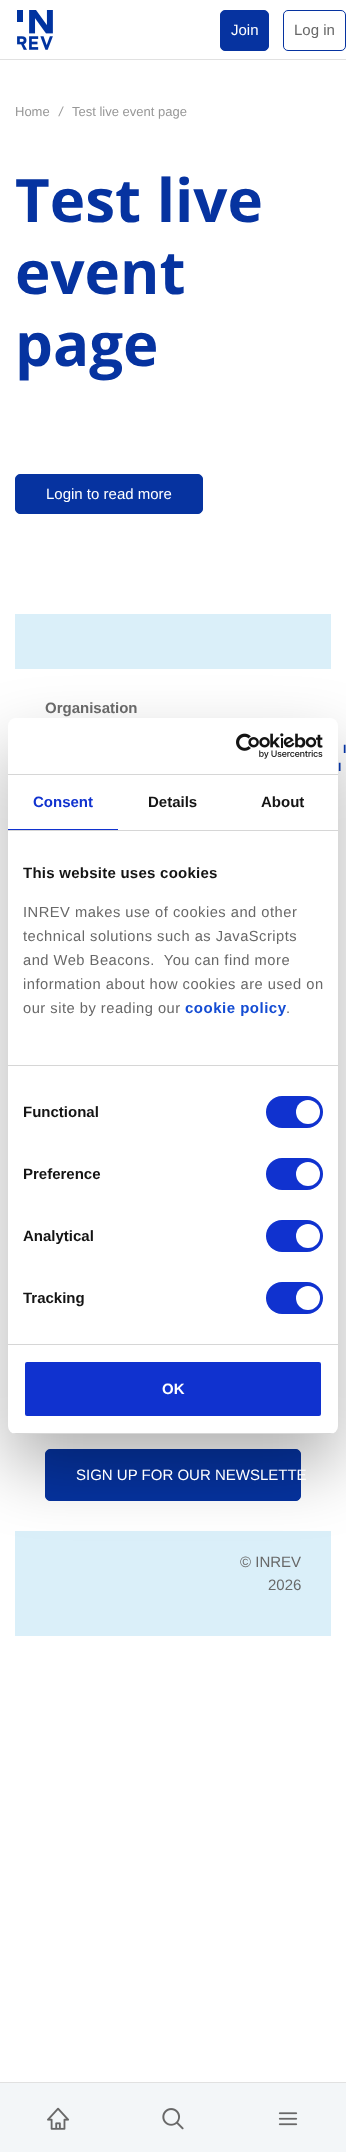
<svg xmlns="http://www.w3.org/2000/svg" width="346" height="2152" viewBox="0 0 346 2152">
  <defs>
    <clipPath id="clip1"><rect x="8" y="718" width="330" height="716" rx="8"/></clipPath>
  </defs>
  <rect width="100%" height="100%" fill="#fff"/>
  <path d="M0 59h346v1H0z" fill="#e1e1e1"/>
  <image x="17" y="10" width="36" height="40" href="img/1.png"/>
  <rect x="220.5" y="10.5" width="48" height="40" rx="4.5" fill="#0633a0" stroke="#0633a0"/>
  <rect x="283.5" y="10.5" width="62" height="40" rx="4.5" fill="none" stroke="#0633a0"/>
  <rect x="15.5" y="474.5" width="187" height="39" rx="4.5" fill="#0633a0" stroke="#0633a0"/>
  <path d="M15 614h316v1022H15z" fill="#daeff9"/>
  <path d="M15 669h316v862H15z" fill="#fff"/>
  <rect x="45.5" y="1449.5" width="255" height="51" rx="4.5" fill="#0633a0" stroke="#0633a0"/>
  <path d="M0 2083h346v69H0z" fill="#f3f6f8"/>
  <path d="M0 2082h346v1H0z" fill="#e1e1e1"/>
  <image x="47" y="2107" width="23" height="23" href="img/2.png"/>
  <image x="162" y="2108" width="22" height="22" href="img/3.png"/>
  <image x="278" y="2112" width="20" height="14" href="img/4.png"/>
  <rect x="8" y="750" width="330" height="716" rx="8" fill="#0000004d" filter="blur(34px)"/>
  <rect x="8" y="718" width="330" height="716" rx="8" fill="#fff"/>
  <path d="M8 774h330v1H8z" fill="#d6d6d6"/>
  <image x="236" y="733" width="87" height="26" href="img/5.png"/>
  <path d="M8 830h330v1H8z" fill="#d6d6d6"/>
  <path d="M8 829h110v1H8z" fill="#1032cf"/>
  <path d="M8 1065h330v1H8z" fill="#d6d6d6"/>
  <path d="M8 1344h330v1H8z" fill="#d6d6d6"/>
  <rect x="266" y="1096" width="57" height="32" rx="16" fill="#1032cf"/>
  <circle cx="308" cy="1112" r="12" fill="#fff"/>
  <rect x="266" y="1158" width="57" height="32" rx="16" fill="#1032cf"/>
  <circle cx="308" cy="1174" r="12" fill="#fff"/>
  <rect x="266" y="1220" width="57" height="32" rx="16" fill="#1032cf"/>
  <circle cx="308" cy="1236" r="12" fill="#fff"/>
  <rect x="266" y="1282" width="57" height="32" rx="16" fill="#1032cf"/>
  <circle cx="308" cy="1298" r="12" fill="#fff"/>
  <g clip-path="url(#clip1)">
    <path d="M8 1433h330v1H8z" fill="#d6d6d6"/>
  </g>
  <rect x="24" y="1361" width="298" height="56" rx="3" fill="#1032cf" stroke="#fff" stroke-width="2"/>
  <text x="231" y="35" font-family="Liberation Sans" font-size="15" fill="#fff">Join</text>
  <text x="294" y="35" font-family="Liberation Sans" font-size="15" fill="#686868">Log in</text>
  <text x="15" y="116" font-family="Liberation Sans" font-size="13" fill="#979797">Home</text>
  <text x="59" y="116" font-family="Liberation Sans" font-size="13" font-style="italic" fill="#979797">/</text>
  <text x="72" y="116" font-family="Liberation Sans" font-size="13" fill="#979797">Test live event page</text>
  <g font-family="Open Sans" font-size="60" font-weight="bold" fill="#0633a0">
    <text x="15" y="222">Test live</text>
    <text x="15" y="294">event</text>
    <text x="15" y="366">page</text>
  </g>
  <text x="46" y="499" font-family="Liberation Sans" font-size="15" fill="#fff">Login to read more</text>
  <text x="45" y="713" font-family="Liberation Sans" font-size="15" font-weight="bold" fill="#686868">Organisation</text>
  <g font-family="Liberation Sans" font-size="12" font-weight="bold" letter-spacing="2" fill="#0633a0">
    <text x="343" y="753">I</text>
    <text x="338" y="771">I</text>
  </g>
  <text x="76" y="1480" font-family="Liberation Sans" font-size="15" fill="#fff">SIGN UP FOR OUR NEWSLETTE</text>
  <g font-family="Liberation Sans" font-size="15" fill="#686868">
    <text x="240" y="1567">© INREV</text>
    <text x="268" y="1590">2026</text>
  </g>
  <text x="33" y="807" font-family="Liberation Sans" font-size="15" font-weight="bold" fill="#1032cf">Consent</text>
  <g font-family="Liberation Sans" font-size="15" font-weight="bold" fill="#141414">
    <text x="148" y="807">Details</text>
    <text x="261" y="807">About</text>
  </g>
  <text x="23" y="878" font-family="Liberation Sans" font-size="15" font-weight="bold" letter-spacing="0.25" fill="#141414">This website uses cookies</text>
  <g font-family="Liberation Sans" font-size="14.7" letter-spacing="0.5" fill="#686868">
    <text x="23" y="917">INREV makes use of cookies and other</text>
    <text x="23" y="941">technical solutions such as JavaScripts</text>
    <text x="23" y="965" xml:space="preserve">and Web Beacons.  You can find more</text>
    <text x="23" y="989">information about how cookies are used on</text>
    <text x="23" y="1013">our site by reading our</text>
  </g>
  <text x="185" y="1013" font-family="Liberation Sans" font-size="15" font-weight="bold" letter-spacing="0.5" fill="#144cd3">cookie policy</text>
  <text x="286" y="1013" font-family="Liberation Sans" font-size="14.7" letter-spacing="0.5" fill="#686868">.</text>
  <g font-family="Liberation Sans" font-size="15" font-weight="bold" fill="#141414">
    <text x="23" y="1117">Functional</text>
    <text x="23" y="1179">Preference</text>
    <text x="23" y="1241">Analytical</text>
    <text x="23" y="1303">Tracking</text>
  </g>
  <text x="162" y="1394" font-family="Liberation Sans" font-size="15" font-weight="bold" fill="#fff">OK</text>
</svg>
